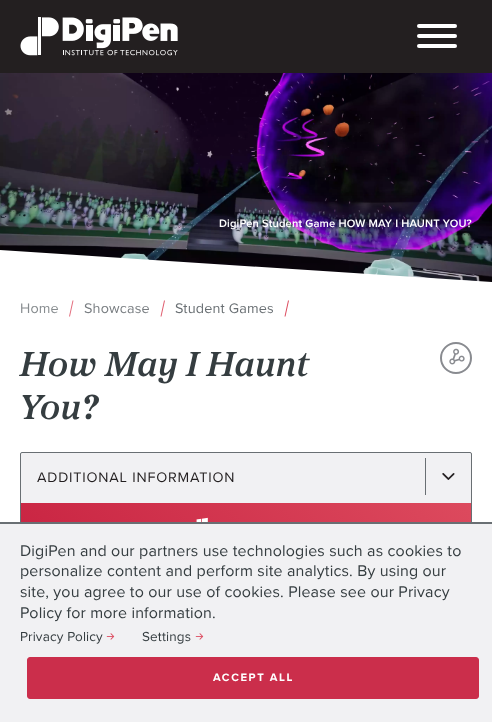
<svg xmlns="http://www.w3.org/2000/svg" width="492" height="722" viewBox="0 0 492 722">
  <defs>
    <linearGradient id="g1" gradientUnits="userSpaceOnUse" x1="236" y1="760" x2="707" y2="289"><stop offset="0" stop-color="#c92442"/><stop offset="0.51" stop-color="#dc495d"/><stop offset="1" stop-color="#fc7c84"/></linearGradient>
  </defs>
  <rect width="100%" height="100%" fill="#fff"/>
  <path d="M0 0h492v73H0z" fill="#231f20"/>
  <image x="20" y="17" width="158" height="39" href="img/1.png"/>
  <rect x="417" y="34" width="40" height="4" rx="2" fill="#fff"/>
  <rect x="417" y="24" width="40" height="4" rx="2" fill="#fff"/>
  <rect x="417" y="44" width="40" height="4" rx="2" fill="#fff"/>
  <image x="0" y="73" width="492" height="209" href="img/2.png"/>
  <path d="M0 250L492 282V286H0Z" fill="#fff"/>
  <path d="M72.5 300.5H73.5L70 316.5H69Z" fill="#e36d7d"/>
  <path d="M164 300.5H165L161.5 316.5H160.5Z" fill="#e05b6d"/>
  <path d="M288 300.5H289L285.5 316.5H284.5Z" fill="#dc495d"/>
  <circle cx="456" cy="358" r="15" fill="none" stroke="#898b90" stroke-width="2"/>
  <image x="449" y="348" width="16" height="17" href="img/3.png"/>
  <rect x="20.5" y="452.5" width="451" height="93" rx="1.5" fill="#f1f1f3" stroke="#696f73"/>
  <path d="M425 458h1v37H425z" fill="#696f73"/>
  <image x="442" y="473" width="13" height="7" href="img/4.png"/>
  <path d="M21 503h450v19H21z" fill="url(#g1)"/>
  <image x="196" y="517" width="12" height="5" href="img/5.png"/>
  <path d="M0 524h492v198H0z" fill="#f1f1f3"/>
  <path d="M0 522h492v2H0z" fill="#696f73"/>
  <image x="106" y="633" width="9" height="7" href="img/6.png"/>
  <image x="195" y="633" width="9" height="7" href="img/6.png"/>
  <rect x="27.5" y="657.5" width="451" height="41" rx="2.5" fill="#cb2e4b" stroke="#cb2e4b"/>
  <text x="219" y="227" font-family="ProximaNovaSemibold" font-size="11.2" letter-spacing="0.15" fill="#fff">DigiPen Student Game HOW MAY I HAUNT YOU?</text>
  <text x="20" y="313" font-family="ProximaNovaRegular" font-size="14.4" letter-spacing="0.15" fill="#878c8f">Home</text>
  <text x="84" y="313" font-family="ProximaNovaRegular" font-size="14.4" letter-spacing="0.15" fill="#787d81">Showcase</text>
  <text x="175" y="313" font-family="ProximaNovaRegular" font-size="14.4" letter-spacing="0.15" fill="#696f73">Student Games</text>
  <g font-family="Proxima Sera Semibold" font-size="36" font-weight="600" font-style="italic" letter-spacing="0.15" fill="#353d40">
    <text x="20" y="376">How May I Haunt</text>
    <text x="20" y="419">You?</text>
  </g>
  <text x="37" y="482" font-family="ProximaNovaRegular" font-size="14.4" letter-spacing="0.8" fill="#231f20">ADDITIONAL INFORMATION</text>
  <g font-family="ProximaNovaRegular" font-size="16" letter-spacing="0.15" fill="#353d40">
    <text x="20" y="556">DigiPen and our partners use technologies such as cookies to</text>
    <text x="20" y="576">personalize content and perform site analytics. By using our</text>
    <text x="20" y="597">site, you agree to our use of cookies. Please see our Privacy</text>
    <text x="20" y="618">Policy for more information.</text>
  </g>
  <g font-family="ProximaNovaRegular" font-size="13.5" letter-spacing="0.15" fill="#353d40">
    <text x="20" y="641">Privacy Policy</text>
    <text x="142" y="641">Settings</text>
  </g>
  <text x="213" y="681" font-family="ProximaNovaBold" font-size="11.2" letter-spacing="1.6" fill="#fff">ACCEPT ALL</text>
</svg>
